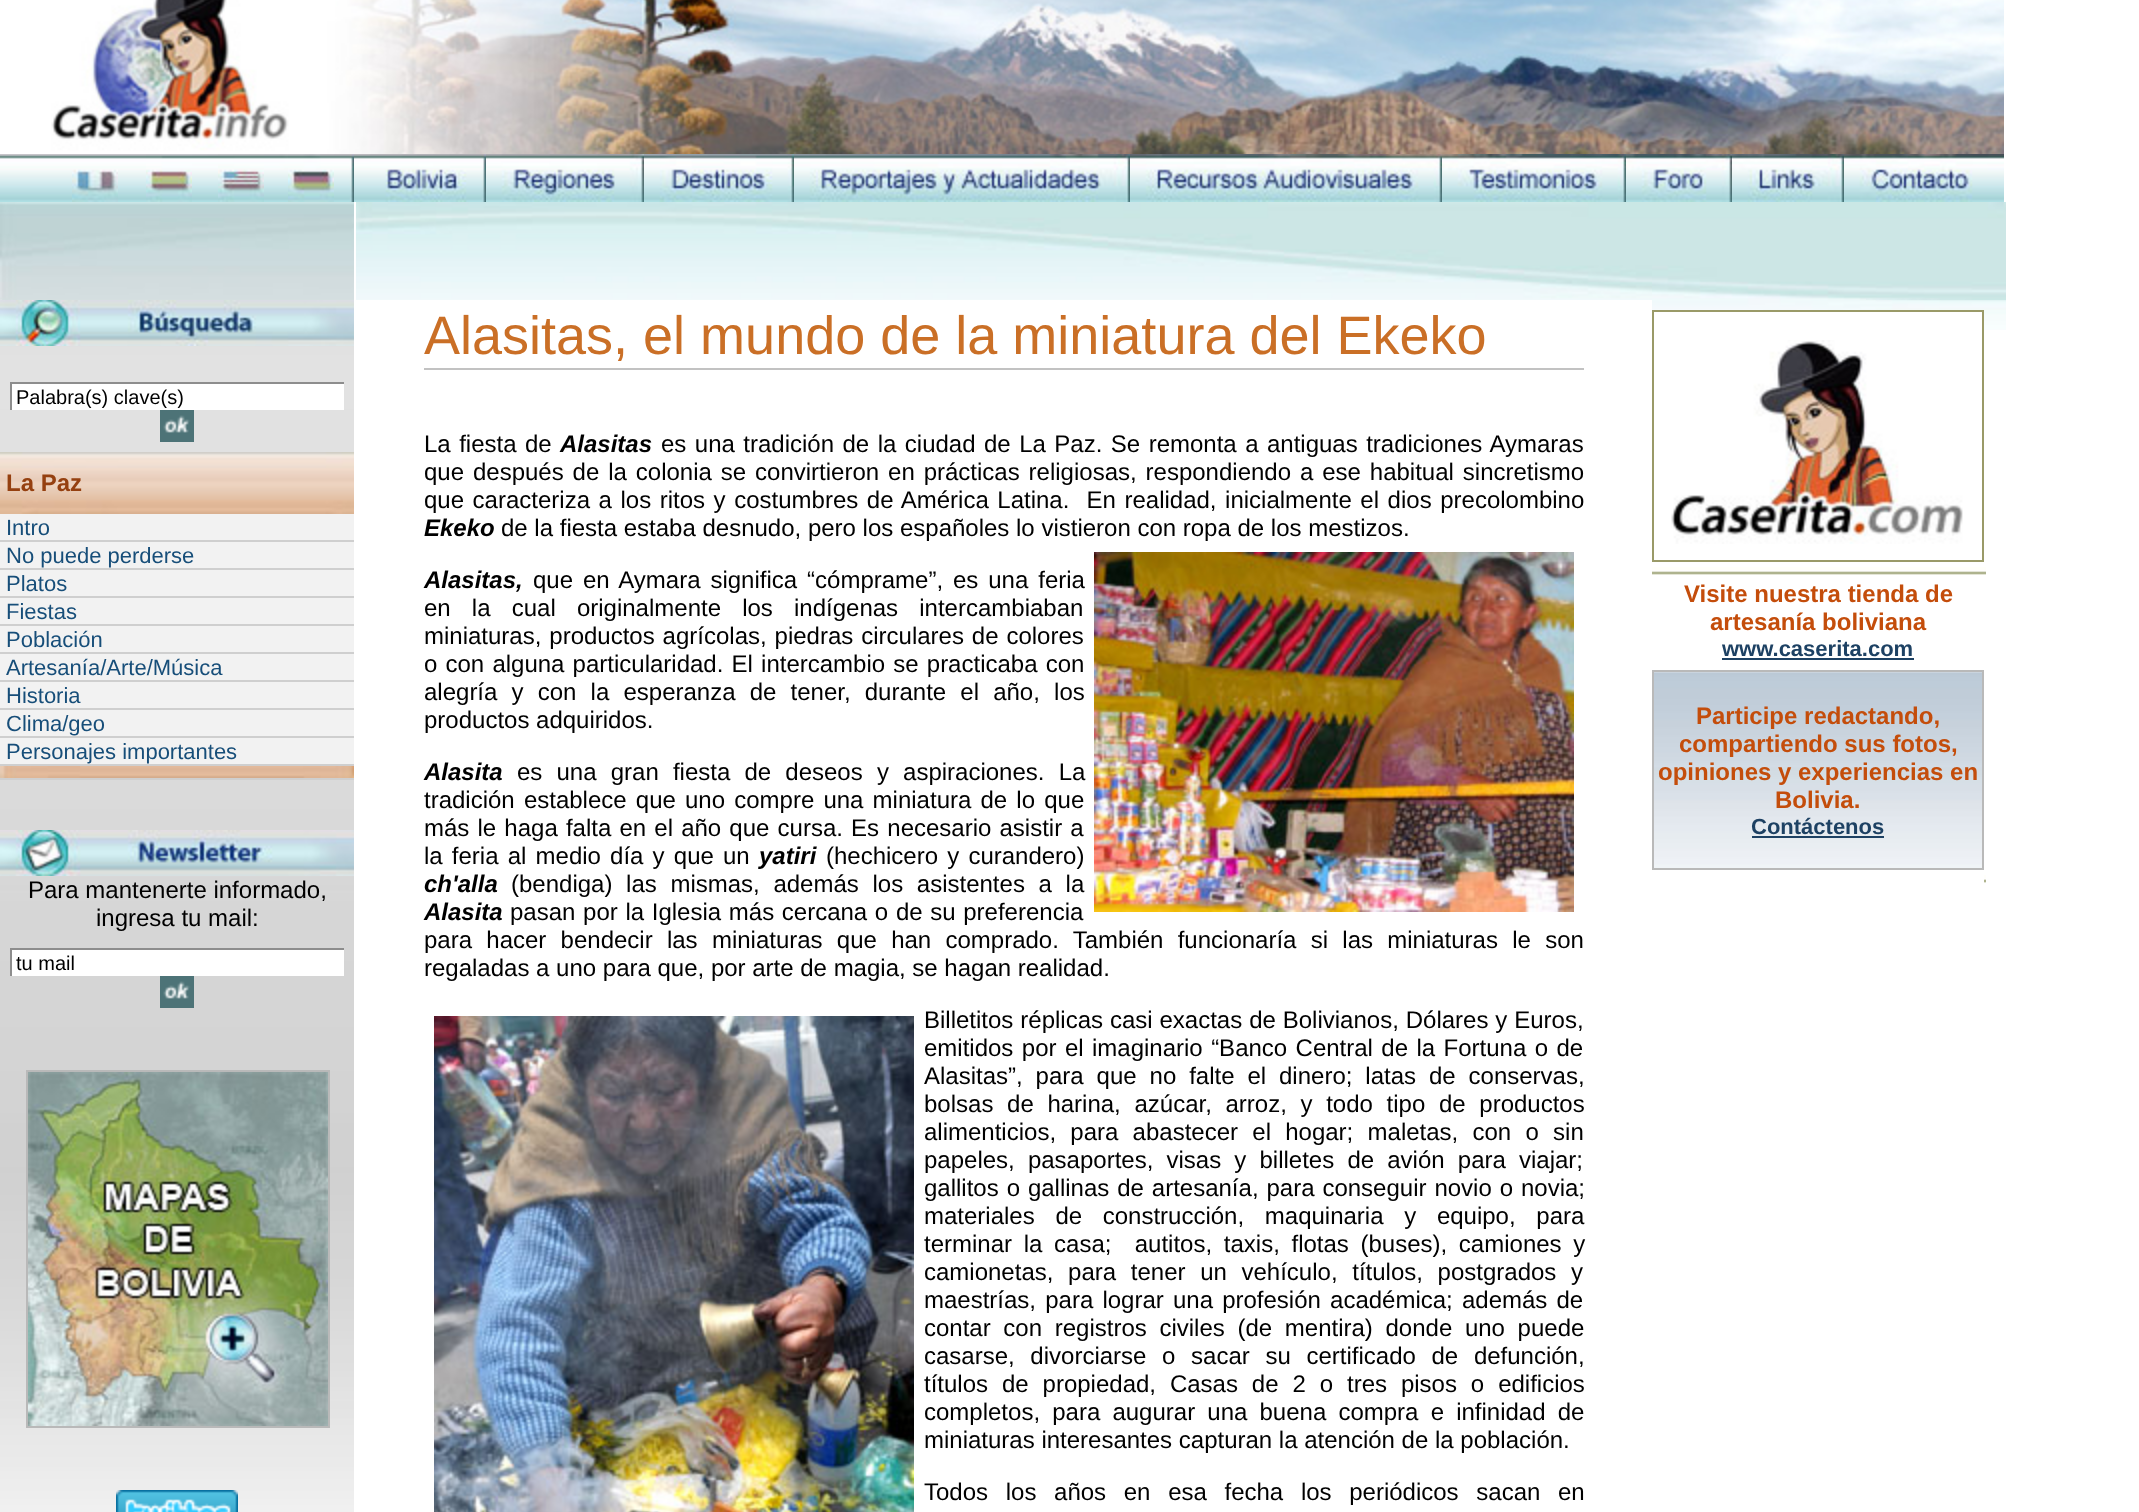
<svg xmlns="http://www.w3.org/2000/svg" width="2139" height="1512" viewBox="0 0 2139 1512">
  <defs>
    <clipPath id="clip1"><path d="M16 386h324v22H16z"/></clipPath>
  </defs>
  <rect width="100%" height="100%" fill="#fff"/>
  <image x="51" y="0" width="1953" height="154" href="img/1.png"/>
  <image x="0" y="154" width="72" height="48" href="img/2.png"/>
  <image x="72" y="154" width="46" height="48" href="img/3.png"/>
  <image x="118" y="154" width="28" height="48" href="img/4.png"/>
  <image x="146" y="154" width="46" height="48" href="img/5.png"/>
  <image x="192" y="154" width="26" height="48" href="img/6.png"/>
  <image x="218" y="154" width="46" height="48" href="img/7.png"/>
  <image x="264" y="154" width="24" height="48" href="img/8.png"/>
  <image x="288" y="154" width="46" height="48" href="img/9.png"/>
  <image x="334" y="154" width="20" height="48" href="img/10.png"/>
  <image x="354" y="154" width="132" height="48" href="img/11.png"/>
  <image x="486" y="154" width="158" height="48" href="img/12.png"/>
  <image x="644" y="154" width="150" height="48" href="img/13.png"/>
  <image x="794" y="154" width="336" height="48" href="img/14.png"/>
  <image x="1130" y="154" width="312" height="48" href="img/15.png"/>
  <image x="1442" y="154" width="184" height="48" href="img/16.png"/>
  <image x="1626" y="154" width="106" height="48" href="img/17.png"/>
  <image x="1732" y="154" width="112" height="48" href="img/18.png"/>
  <image x="1844" y="154" width="160" height="48" href="img/19.png"/>
  <image x="0" y="202" width="354" height="1310" href="img/20.png"/>
  <path d="M0 299h2v1H0z" fill="#dce1e4"/>
  <image x="0" y="300" width="354" height="46" href="img/21.png"/>
  <path d="M12 384h332v26H12z" fill="#fff"/>
  <path d="M10 382h334v2H10z" fill="#8d8d8d"/>
  <path d="M10 382h2v28H10z" fill="#8d8d8d"/>
  <image x="160" y="410" width="34" height="32" href="img/22.png"/>
  <image x="0" y="452" width="6" height="62" href="img/23.png"/>
  <image x="6" y="452" width="348" height="62" href="img/24.png"/>
  <path d="M0 514h354v26H0z" fill="#f2f2f2"/>
  <path d="M0 540h354v2H0z" fill="#cfcfcf"/>
  <path d="M0 542h354v26H0z" fill="#f2f2f2"/>
  <path d="M0 568h354v2H0z" fill="#cfcfcf"/>
  <path d="M0 570h354v26H0z" fill="#f2f2f2"/>
  <path d="M0 596h354v2H0z" fill="#cfcfcf"/>
  <path d="M0 598h354v26H0z" fill="#f2f2f2"/>
  <path d="M0 624h354v2H0z" fill="#cfcfcf"/>
  <path d="M0 626h354v26H0z" fill="#f2f2f2"/>
  <path d="M0 652h354v2H0z" fill="#cfcfcf"/>
  <path d="M0 654h354v26H0z" fill="#f2f2f2"/>
  <path d="M0 680h354v2H0z" fill="#cfcfcf"/>
  <path d="M0 682h354v26H0z" fill="#f2f2f2"/>
  <path d="M0 708h354v2H0z" fill="#cfcfcf"/>
  <path d="M0 710h354v26H0z" fill="#f2f2f2"/>
  <path d="M0 736h354v2H0z" fill="#cfcfcf"/>
  <path d="M0 738h354v26H0z" fill="#f2f2f2"/>
  <path d="M0 764h354v2H0z" fill="#cfcfcf"/>
  <image x="0" y="766" width="354" height="12" href="img/25.png"/>
  <path d="M0 778h354v2H0z" fill="#cfcfcf"/>
  <image x="0" y="830" width="354" height="46" href="img/26.png"/>
  <path d="M12 950h332v26H12z" fill="#fff"/>
  <path d="M10 948h334v2H10z" fill="#8d8d8d"/>
  <path d="M10 948h2v28H10z" fill="#8d8d8d"/>
  <image x="160" y="976" width="34" height="32" href="img/22.png"/>
  <path d="M27 1071h302v356H27z" fill="none" stroke="#b9b9b9" stroke-width="2"/>
  <image x="28" y="1072" width="300" height="354" href="img/27.png"/>
  <image x="116" y="1490" width="122" height="22" href="img/28.png"/>
  <image x="356" y="202" width="1296" height="98" href="img/29.png"/>
  <path d="M424 368h1160v2H424z" fill="#c2c2c2"/>
  <image x="1094" y="552" width="480" height="360" href="img/30.png"/>
  <image x="434" y="1016" width="480" height="496" href="img/31.png"/>
  <image x="1652" y="202" width="354" height="128" href="img/32.png"/>
  <image x="1866" y="298" width="140" height="2" href="img/33.png"/>
  <path d="M1654 312h328v18H1654z" fill="#fff"/>
  <path d="M1653 311h330v250H1653z" fill="none" stroke="#9a9a68" stroke-width="2"/>
  <image x="1671" y="340" width="292" height="204" href="img/34.png"/>
  <image x="1652" y="567" width="332" height="8" href="img/35.png"/>
  <image x="1984" y="567" width="2" height="8" href="img/36.png"/>
  <path d="M1722 658h192v2H1722z" fill="#1d4163"/>
  <image x="1654" y="672" width="328" height="196" href="img/37.png"/>
  <path d="M1653 671h330v198H1653z" fill="none" stroke="#b9b9b9" stroke-width="2"/>
  <path d="M1752 836h132v2H1752z" fill="#1d4163"/>
  <image x="1984" y="875" width="2" height="8" href="img/36.png"/>
  <g clip-path="url(#clip1)">
    <text x="16" y="404" font-family="Liberation Sans" font-size="20" fill="#000">Palabra(s) clave(s)</text>
  </g>
  <text x="6" y="491" font-family="Liberation Sans" font-size="24" font-weight="bold" fill="#954010">La Paz</text>
  <g font-family="Liberation Sans" font-size="22" fill="#174e79">
    <text x="6" y="535">Intro</text>
    <text x="6" y="563">No puede perderse</text>
    <text x="6" y="591">Platos</text>
    <text x="6" y="619">Fiestas</text>
    <text x="6" y="647">Población</text>
    <text x="6" y="675">Artesanía/Arte/Música</text>
    <text x="6" y="703">Historia</text>
    <text x="6" y="731">Clima/geo</text>
    <text x="6" y="759">Personajes importantes</text>
  </g>
  <g font-family="Liberation Sans" font-size="24" fill="#000">
    <text x="28" y="898">Para mantenerte informado,</text>
    <text x="96" y="926">ingresa tu mail:</text>
  </g>
  <text x="16" y="970" font-family="Liberation Sans" font-size="20" fill="#000">tu mail</text>
  <text x="424" y="354" font-family="Liberation Sans" font-size="54" fill="#ca6f26">Alasitas, el mundo de la miniatura del Ekeko</text>
  <text x="424" y="452" word-spacing="1.8" font-family="Liberation Sans" font-size="24" fill="#000">La fiesta de</text>
  <text x="560" y="452" font-family="Liberation Sans" font-size="24" font-weight="bold" font-style="italic" fill="#000">Alasitas</text>
  <g font-family="Liberation Sans" font-size="24" fill="#000">
    <text x="661" y="452" word-spacing="1.8">es una tradición de la ciudad de La Paz. Se remonta a antiguas tradiciones Aymaras</text>
    <text x="424" y="480" word-spacing="2.25">que después de la colonia se convirtieron en prácticas religiosas, respondiendo a ese habitual sincretismo</text>
    <text x="424" y="508" word-spacing="1.9" xml:space="preserve">que caracteriza a los ritos y costumbres de América Latina.  En realidad, inicialmente el dios precolombino</text>
  </g>
  <text x="424" y="536" font-family="Liberation Sans" font-size="24" font-weight="bold" font-style="italic" fill="#000">Ekeko</text>
  <text x="501" y="536" font-family="Liberation Sans" font-size="24" fill="#000">de la fiesta estaba desnudo, pero los españoles lo vistieron con ropa de los mestizos.</text>
  <text x="424" y="588" font-family="Liberation Sans" font-size="24" font-weight="bold" font-style="italic" fill="#000">Alasitas,</text>
  <g font-family="Liberation Sans" font-size="24" fill="#000">
    <text x="533" y="588" word-spacing="3.25">que en Aymara significa “cómprame”, es una feria</text>
    <text x="424" y="616" word-spacing="14.5">en la cual originalmente los indígenas intercambiaban</text>
    <text x="424" y="644" word-spacing="1.25">miniaturas, productos agrícolas, piedras circulares de colores</text>
    <text x="424" y="672" word-spacing="1.5">o con alguna particularidad. El intercambio se practicaba con</text>
    <text x="424" y="700" word-spacing="7.5">alegría y con la esperanza de tener, durante el año, los</text>
    <text x="424" y="728">productos adquiridos.</text>
  </g>
  <text x="424" y="780" font-family="Liberation Sans" font-size="24" font-weight="bold" font-style="italic" fill="#000">Alasita</text>
  <g font-family="Liberation Sans" font-size="24" fill="#000">
    <text x="517" y="780" word-spacing="7.5">es una gran fiesta de deseos y aspiraciones. La</text>
    <text x="424" y="808" word-spacing="2.5">tradición establece que uno compre una miniatura de lo que</text>
    <text x="424" y="836" word-spacing="1.5">más le haga falta en el año que cursa. Es necesario asistir a</text>
    <text x="424" y="864" word-spacing="2.5">la feria al medio día y que un</text>
  </g>
  <text x="759" y="864" font-family="Liberation Sans" font-size="24" font-weight="bold" font-style="italic" fill="#000">yatiri</text>
  <text x="826" y="864" word-spacing="2.5" font-family="Liberation Sans" font-size="24" fill="#000">(hechicero y curandero)</text>
  <text x="424" y="892" font-family="Liberation Sans" font-size="24" font-weight="bold" font-style="italic" fill="#000">ch'alla</text>
  <text x="511" y="892" word-spacing="7" font-family="Liberation Sans" font-size="24" fill="#000">(bendiga) las mismas, además los asistentes a la</text>
  <text x="424" y="920" font-family="Liberation Sans" font-size="24" font-weight="bold" font-style="italic" fill="#000">Alasita</text>
  <g font-family="Liberation Sans" font-size="24" fill="#000">
    <text x="510" y="920" word-spacing="1">pasan por la Iglesia más cercana o de su preferencia</text>
    <text x="424" y="948" word-spacing="7.6">para hacer bendecir las miniaturas que han comprado. También funcionaría si las miniaturas le son</text>
    <text x="424" y="976">regaladas a uno para que, por arte de magia, se hagan realidad.</text>
    <text x="924" y="1028" word-spacing="0.25">Billetitos réplicas casi exactas de Bolivianos, Dólares y Euros,</text>
    <text x="924" y="1056" word-spacing="1.75">emitidos por el imaginario “Banco Central de la Fortuna o de</text>
    <text x="924" y="1084" word-spacing="6.25">Alasitas”, para que no falte el dinero; latas de conservas,</text>
    <text x="924" y="1112" word-spacing="7">bolsas de harina, azúcar, arroz, y todo tipo de productos</text>
    <text x="924" y="1140" word-spacing="7.6">alimenticios, para abastecer el hogar; maletas, con o sin</text>
    <text x="924" y="1168" word-spacing="6.5">papeles, pasaportes, visas y billetes de avión para viajar;</text>
    <text x="924" y="1196" word-spacing="1.25">gallitos o gallinas de artesanía, para conseguir novio o novia;</text>
    <text x="924" y="1224" word-spacing="14">materiales de construcción, maquinaria y equipo, para</text>
    <text x="924" y="1252" word-spacing="5" xml:space="preserve">terminar la casa;  autitos, taxis, flotas (buses), camiones y</text>
    <text x="924" y="1280" word-spacing="8">camionetas, para tener un vehículo, títulos, postgrados y</text>
    <text x="924" y="1308" word-spacing="2.5">maestrías, para lograr una profesión académica; además de</text>
    <text x="924" y="1336" word-spacing="6">contar con registros civiles (de mentira) donde uno puede</text>
    <text x="924" y="1364" word-spacing="9">casarse, divorciarse o sacar su certificado de defunción,</text>
    <text x="924" y="1392" word-spacing="7.25">títulos de propiedad, Casas de 2 o tres pisos o edificios</text>
    <text x="924" y="1420" word-spacing="5.5">completos, para augurar una buena compra e infinidad de</text>
    <text x="924" y="1448">miniaturas interesantes capturan la atención de la población.</text>
    <text x="924" y="1500" word-spacing="11">Todos los años en esa fecha los periódicos sacan en</text>
  </g>
  <g font-family="Liberation Sans" font-size="24" font-weight="bold" fill="#c44d0b">
    <text x="1684" y="602">Visite nuestra tienda de</text>
    <text x="1710" y="630">artesanía boliviana</text>
  </g>
  <text x="1722" y="656" font-family="Liberation Sans" font-size="22" font-weight="bold" fill="#1d4163">www.caserita.com</text>
  <g font-family="Liberation Sans" font-size="24" font-weight="bold" fill="#c44d0b">
    <text x="1696" y="724">Participe redactando,</text>
    <text x="1679" y="752">compartiendo sus fotos,</text>
    <text x="1658" y="780">opiniones y experiencias en</text>
    <text x="1775" y="808">Bolivia.</text>
  </g>
  <text x="1751" y="834" font-family="Liberation Sans" font-size="22" font-weight="bold" fill="#1d4163">Contáctenos</text>
</svg>
